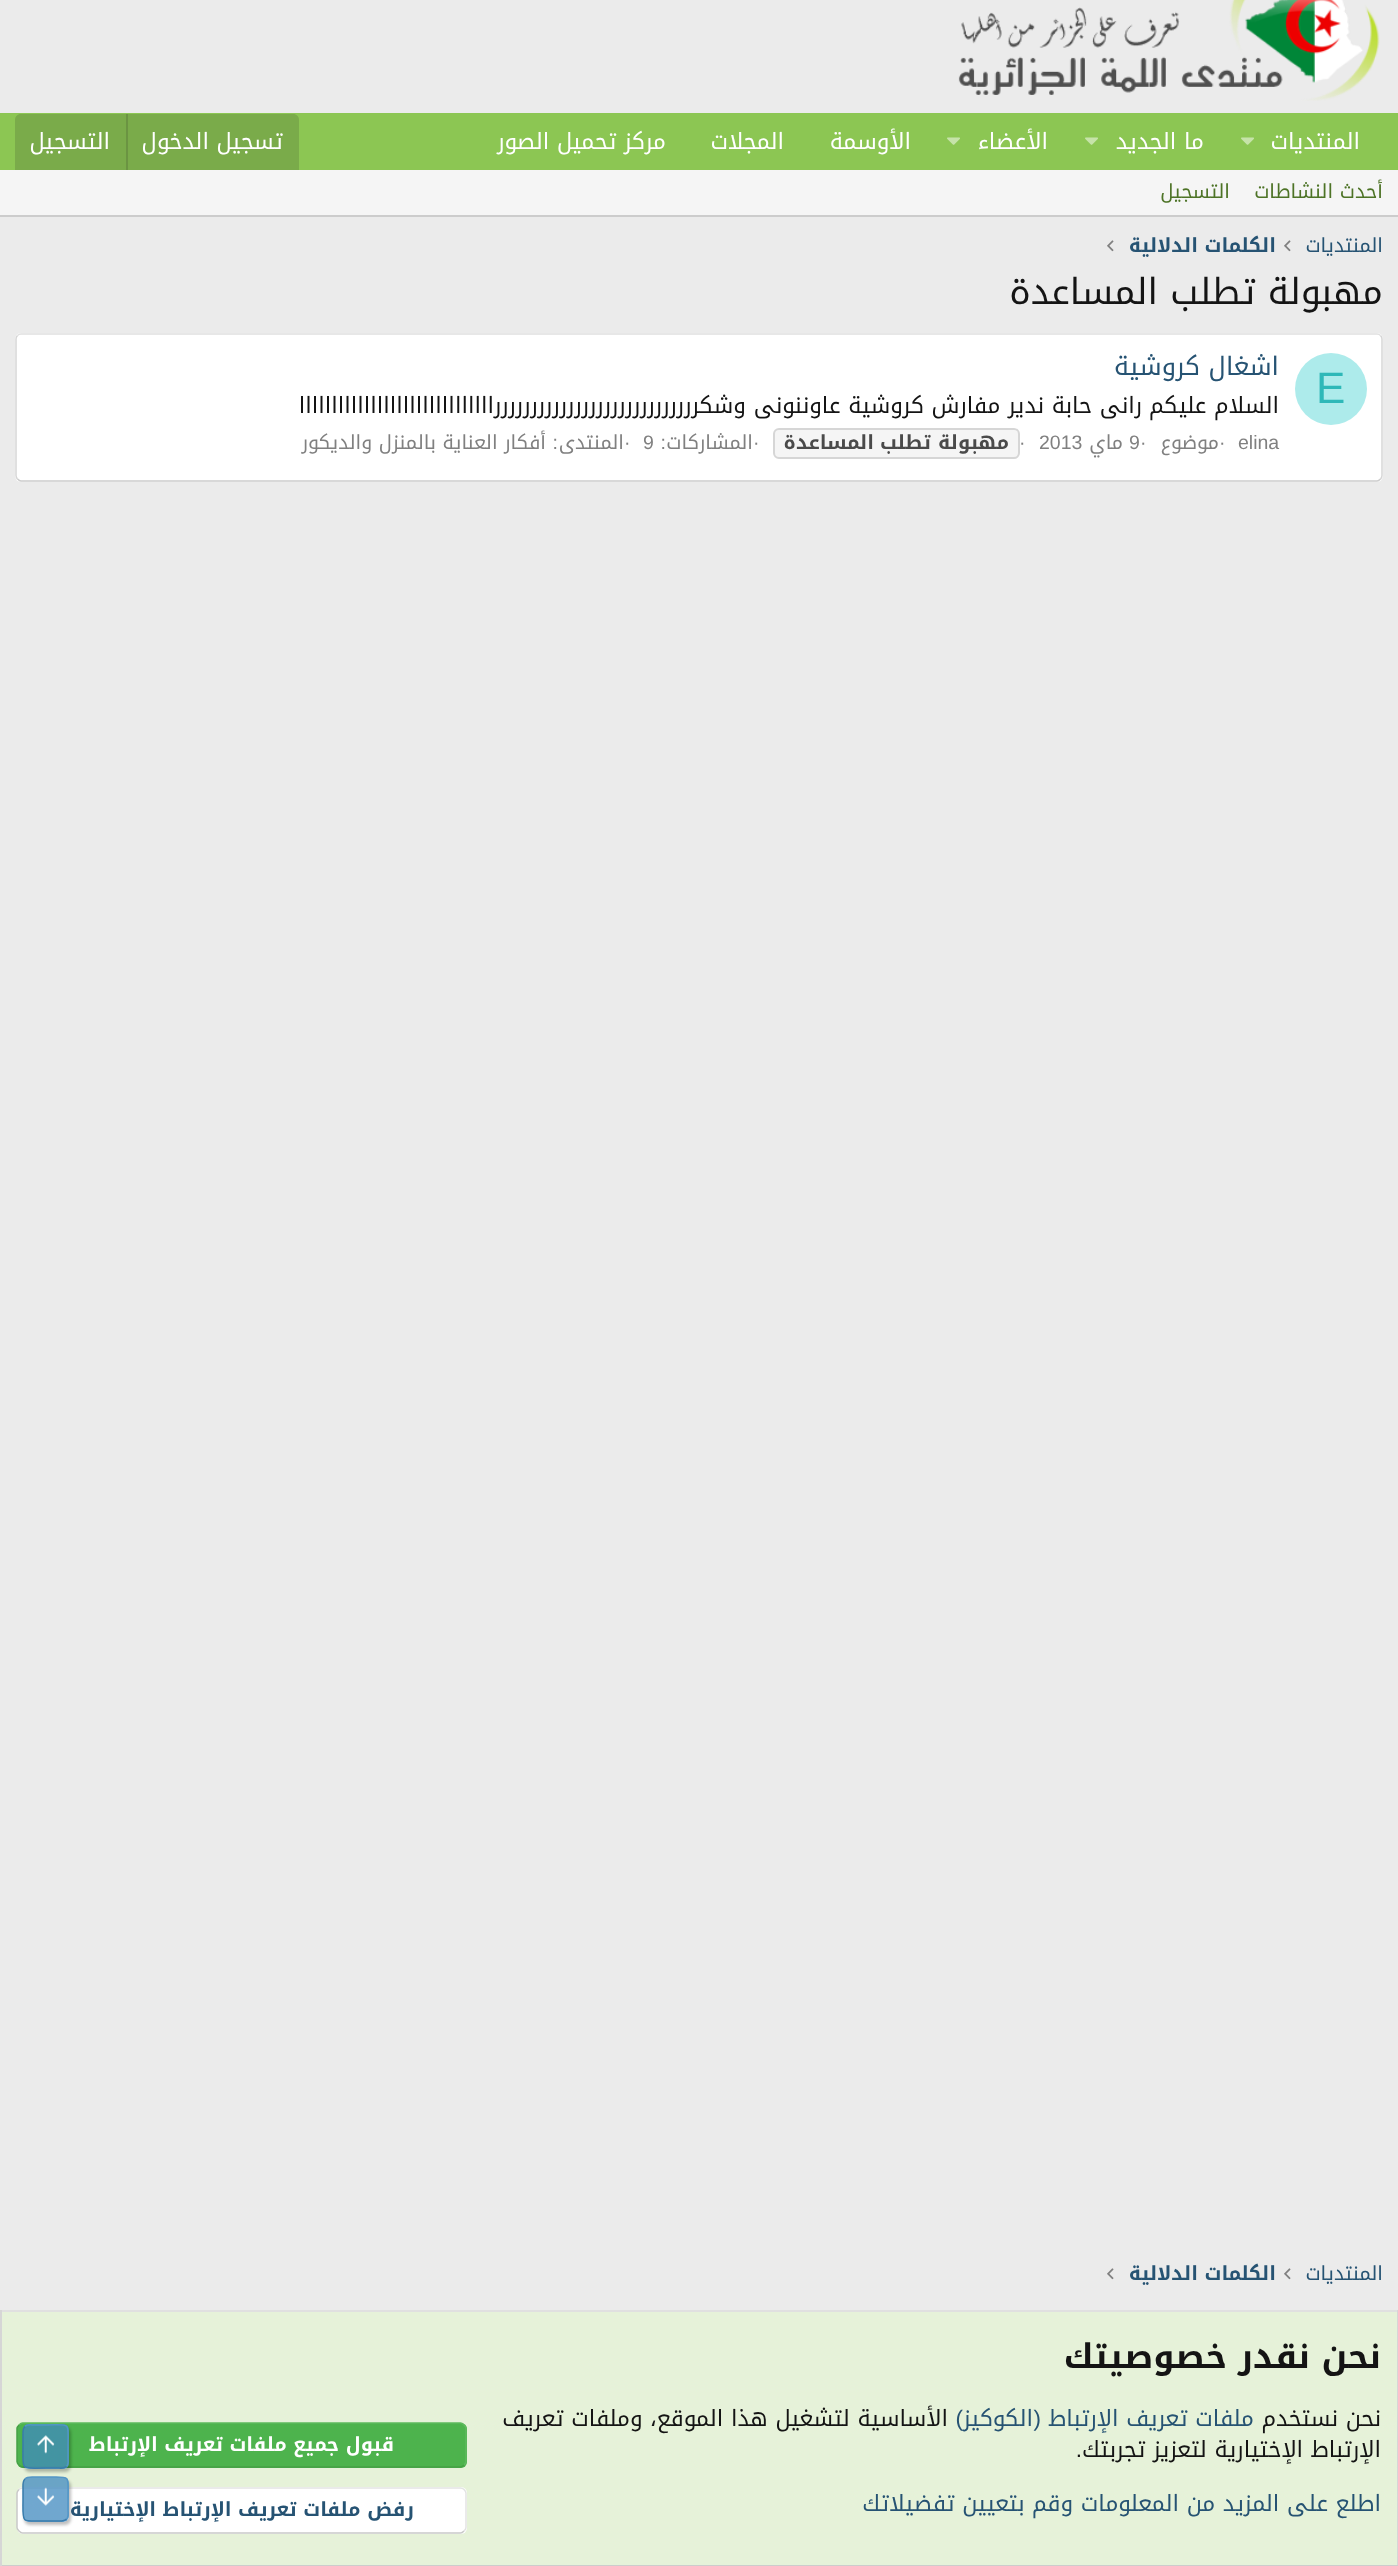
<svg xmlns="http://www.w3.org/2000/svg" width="1398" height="2566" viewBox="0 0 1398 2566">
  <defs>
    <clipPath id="clip1"><path d="M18 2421H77V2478H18ZM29 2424H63C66.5 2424 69 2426.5 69 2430V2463C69 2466.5 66.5 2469 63 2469H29C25.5 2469 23 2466.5 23 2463V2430C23 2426.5 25.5 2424 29 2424Z" clip-rule="evenodd"/></clipPath>
    <clipPath id="clip2"><path d="M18 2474H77V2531H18ZM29 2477H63C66.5 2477 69 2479.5 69 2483V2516C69 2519.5 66.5 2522 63 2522H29C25.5 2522 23 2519.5 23 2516V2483C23 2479.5 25.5 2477 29 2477Z" clip-rule="evenodd"/></clipPath>
  </defs>
  <rect width="100%" height="100%" fill="#ebebeb"/>
  <image x="958" y="0" width="422" height="101" href="img/1.png"/>
  <path d="M0 113h1398v57H0z" fill="#8cc653"/>
  <image x="1241" y="137" width="13" height="8" href="img/2.png"/>
  <image x="1085" y="137" width="13" height="8" href="img/2.png"/>
  <image x="947" y="137" width="13" height="8" href="img/2.png"/>
  <path d="M21 114H293C296.5 114 299 116.5 299 120V170H15V120C15 116.5 17.5 114 21 114Z" fill="#7aab4a"/>
  <path d="M126 114h2v56H126z" fill="#6b9442"/>
  <path d="M0 170h1398v45H0z" fill="#f5f5f5"/>
  <path d="M0 215h1398v2H0z" fill="#ccc"/>
  <image x="1284" y="240" width="7" height="12" href="img/3.png"/>
  <image x="1107" y="240" width="7" height="12" href="img/3.png"/>
  <rect x="15" y="333" width="1368" height="149" rx="6" fill="#fff"/>
  <path d="M17.5 335.5C18.5 334.5 19.5 334 21 334H1377C1378.5 334 1379.5 334.5 1380.5 335.5" fill="none" stroke="#e0e0e0" stroke-width="1.5"/>
  <path d="M1380.5 335.5C1381.5 336.5 1382 337.5 1382 339V475.5C1382 477 1381.5 478 1380.5 479" fill="none" stroke="#d6d6d6" stroke-width="1.5"/>
  <path d="M1380.5 479C1379.5 480 1378.5 481 1377 481H21C19.5 481 18.5 480 17.5 479" fill="none" stroke="#ccc" stroke-width="1.5"/>
  <path d="M17.5 479C16.5 478 16 477 16 475.5V339C16 337.5 16.5 336.5 17.5 335.5" fill="none" stroke="#d6d6d6" stroke-width="1.5"/>
  <circle cx="1331" cy="389" r="36" fill="#adebeb"/>
  <rect x="774" y="429" width="245" height="29" rx="5" fill="#f5f5f5" stroke="#d6d6d6" stroke-width="2"/>
  <image x="1284" y="2268" width="7" height="12" href="img/3.png"/>
  <image x="1107" y="2268" width="7" height="12" href="img/3.png"/>
  <path d="M2 2312h1395v253H2z" fill="#e6f2d9"/>
  <path d="M0 2310h1398v2H0z" fill="#e0e0e0"/>
  <path d="M1397 2310h1v256H1397z" fill="#d6d6d6"/>
  <path d="M0 2565h1398v1H0z" fill="#ccc"/>
  <path d="M0 2310h2v256H0z" fill="#d6d6d6"/>
  <rect x="17" y="2423" width="450" height="45" rx="6" fill="#4db34d"/>
  <path d="M19 2425C20 2424 21 2423 22.5 2423H460.5C462 2423 463 2424 464 2425C465 2426 466 2427 466 2428.5V2461.5C466 2463 465 2464 464 2465" fill="none" stroke="#5eba5e" stroke-width="1.5"/>
  <path d="M464 2465C463 2466 462 2467 460.5 2467H22.5C21 2467 20 2466 19 2465C18 2464 17 2463 17 2461.5V2428.5C17 2427 18 2426 19 2425" fill="none" stroke="#45a145" stroke-width="1.5"/>
  <rect x="17" y="2487" width="450" height="47" rx="6" fill="#fff"/>
  <path d="M19 2489.5C20 2488.5 21 2488 22.5 2488H460.5C462 2488 463 2488.5 464 2489.5C465 2490.5 466 2491.5 466 2493V2527.5C466 2529 465 2530 464 2531" fill="none" stroke="#e3e3e3" stroke-width="1.5"/>
  <path d="M464 2531C463 2532 462 2533 460.5 2533H22.5C21 2533 20 2532 19 2531C18 2530 17 2529 17 2527.5V2493C17 2491.5 18 2490.5 19 2489.5" fill="none" stroke="#c9c9c9" stroke-width="1.5"/>
  <g clip-path="url(#clip1)">
    <rect x="24" y="2427" width="47" height="45" rx="6" fill="#00000040" filter="blur(1.5px)"/>
  </g>
  <rect x="23" y="2424" width="46" height="45" rx="6" fill="#408abfbf"/>
  <path d="M25 2426.5C27 2424 31.5 2425 34 2425H46C71.5 2425 68 2421 68 2446.5V2457.5C68 2460.5 69 2464.5 66.5 2466.5" fill="none" stroke="#5396c6" stroke-width="1.5"/>
  <path d="M66.5 2466.5C64.5 2469 60 2468 57 2468H46C20 2468 23 2472 23 2446.5V2435.5C23 2432.5 22.5 2428.5 25 2426.5" fill="none" stroke="#397cac" stroke-width="1.5"/>
  <image x="37" y="2435" width="18" height="19" href="img/4.png"/>
  <g clip-path="url(#clip2)">
    <rect x="24" y="2480" width="47" height="45" rx="6" fill="#00000040" filter="blur(1.5px)"/>
  </g>
  <rect x="23" y="2477" width="46" height="45" rx="6" fill="#408abfbf"/>
  <path d="M25 2479C27 2476.5 31.5 2477 34 2477H46C71.5 2477 68 2473.5 68 2499V2510C68 2513 69 2517 66.5 2519" fill="none" stroke="#5396c6" stroke-width="1.5"/>
  <path d="M66.5 2519C64.5 2521.5 60 2521 57 2521H46C20 2521 23 2524.5 23 2499V2488C23 2485 22.5 2481 25 2479" fill="none" stroke="#397cac" stroke-width="1.5"/>
  <image x="37" y="2487" width="18" height="19" href="img/5.png"/>
  <g font-family="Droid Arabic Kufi" font-size="22.5" direction="rtl" fill="#fff">
    <text x="1360" y="149">المنتديات</text>
    <text x="1204" y="149">ما الجديد</text>
    <text x="1048" y="149">الأعضاء</text>
    <text x="911" y="149">الأوسمة</text>
    <text x="784" y="149">المجلات</text>
    <text x="666" y="149">مركز تحميل الصور</text>
    <text x="283" y="149">تسجيل الدخول</text>
    <text x="110" y="149">التسجيل</text>
  </g>
  <g font-family="Droid Arabic Kufi" font-size="19.5" direction="rtl" fill="#4d7326">
    <text x="1383" y="198">أحدث النشاطات</text>
    <text x="1230" y="198">التسجيل</text>
  </g>
  <text x="1383" y="252" font-family="Droid Arabic Kufi" font-size="19.5" direction="rtl" fill="#265373">المنتديات</text>
  <text x="1276" y="252" font-family="Droid Arabic Kufi" font-size="19.5" font-weight="bold" direction="rtl" fill="#265373">الكلمات الدلالية</text>
  <text x="1383" y="304" font-family="Droid Arabic Kufi" font-size="36" direction="rtl" fill="#141414">مهبولة تطلب المساعدة</text>
  <text x="1316" y="403" font-family="Liberation Sans" font-size="44" fill="#2eb8b8">E</text>
  <text x="1279" y="375" font-family="Droid Arabic Kufi" font-size="25.5" direction="rtl" fill="#265373">اشغال كروشية</text>
  <g font-family="Droid Arabic Kufi" font-size="22.5" direction="rtl" fill="#141414">
    <text x="1279" y="413">السلام عليكم</text>
    <text x="1142" y="413">رانى حابة ندير مفارش كروشية عاوننونى</text>
    <text x="746" y="413">وشكرررررررررررررررررررررررررررراااااااااااااااااااااااااااااا</text>
  </g>
  <g font-family="Liberation Sans" font-size="19.5" fill="#808080">
    <text x="1238" y="449">elina</text>
    <text x="1219" y="449">·</text>
  </g>
  <text x="1219" y="449" font-family="Droid Arabic Kufi" font-size="19.5" direction="rtl" fill="#808080">موضوع</text>
  <g font-family="Liberation Sans" font-size="19.5" fill="#808080">
    <text x="1140" y="449">·</text>
    <text x="1129" y="449">9</text>
  </g>
  <text x="1123" y="449" font-family="Droid Arabic Kufi" font-size="19.5" direction="rtl" fill="#808080">ماي</text>
  <g font-family="Liberation Sans" font-size="19.5" fill="#808080">
    <text x="1039" y="449">2013</text>
    <text x="1019" y="449">·</text>
  </g>
  <g font-family="Droid Arabic Kufi" font-size="19.5" font-weight="bold" direction="rtl" fill="#4a4a4a">
    <text x="1009" y="449">مهبولة</text>
    <text x="931" y="449">تطلب</text>
    <text x="874" y="449">المساعدة</text>
  </g>
  <text x="753" y="449" font-family="Liberation Sans" font-size="19.5" fill="#808080">·</text>
  <text x="753" y="449" font-family="Droid Arabic Kufi" font-size="19.5" direction="rtl" fill="#808080">المشاركات</text>
  <text x="666" y="449" font-family="Liberation Sans" font-size="19.5" direction="rtl" fill="#808080">:</text>
  <g font-family="Liberation Sans" font-size="19.5" fill="#808080">
    <text x="643" y="449">9</text>
    <text x="624" y="449">·</text>
  </g>
  <text x="624" y="449" font-family="Droid Arabic Kufi" font-size="19.5" direction="rtl" fill="#808080">المنتدى</text>
  <text x="558" y="449" font-family="Liberation Sans" font-size="19.5" direction="rtl" fill="#808080">:</text>
  <text x="546" y="449" font-family="Droid Arabic Kufi" font-size="19.5" direction="rtl" fill="#808080">أفكار العناية بالمنزل والديكور</text>
  <text x="1383" y="2280" font-family="Droid Arabic Kufi" font-size="19.5" direction="rtl" fill="#265373">المنتديات</text>
  <text x="1276" y="2280" font-family="Droid Arabic Kufi" font-size="19.5" font-weight="bold" direction="rtl" fill="#265373">الكلمات الدلالية</text>
  <text x="1381" y="2368" font-family="Droid Arabic Kufi" font-size="33.75" font-weight="bold" direction="rtl" fill="#141414">نحن نقدر خصوصيتك</text>
  <text x="1381" y="2426" font-family="Droid Arabic Kufi" font-size="22.5" direction="rtl" fill="#141414">نحن نستخدم</text>
  <text x="1254" y="2426" font-family="Droid Arabic Kufi" font-size="22.5" direction="rtl" fill="#265373">ملفات تعريف الإرتباط</text>
  <g font-family="Liberation Sans" font-size="22.5" direction="rtl" fill="#265373">
    <text x="1041" y="2426">(</text>
    <text x="963" y="2426">)</text>
  </g>
  <text x="1033" y="2426" font-family="Droid Arabic Kufi" font-size="22.5" direction="rtl" fill="#265373">الكوكيز</text>
  <g font-family="Droid Arabic Kufi" font-size="22.5" direction="rtl" fill="#141414">
    <text x="948" y="2426">الأساسية لتشغيل هذا الموقع، وملفات تعريف</text>
    <text x="1381" y="2457">الإرتباط الإختيارية لتعزيز تجربتك</text>
  </g>
  <text x="1082" y="2457" font-family="Liberation Sans" font-size="22.5" direction="rtl" fill="#141414">.</text>
  <text x="1381" y="2511" font-family="Droid Arabic Kufi" font-size="22.5" direction="rtl" fill="#265373">اطلع على المزيد من المعلومات وقم بتعيين تفضيلاتك</text>
  <text x="394" y="2451" font-family="Droid Arabic Kufi" font-size="19.5" font-weight="bold" direction="rtl" fill="#fff">قبول جميع ملفات تعريف الإرتباط</text>
  <text x="414" y="2516" font-family="Droid Arabic Kufi" font-size="19.5" font-weight="bold" direction="rtl" fill="#265373">رفض ملفات تعريف الإرتباط الإختيارية</text>
</svg>
